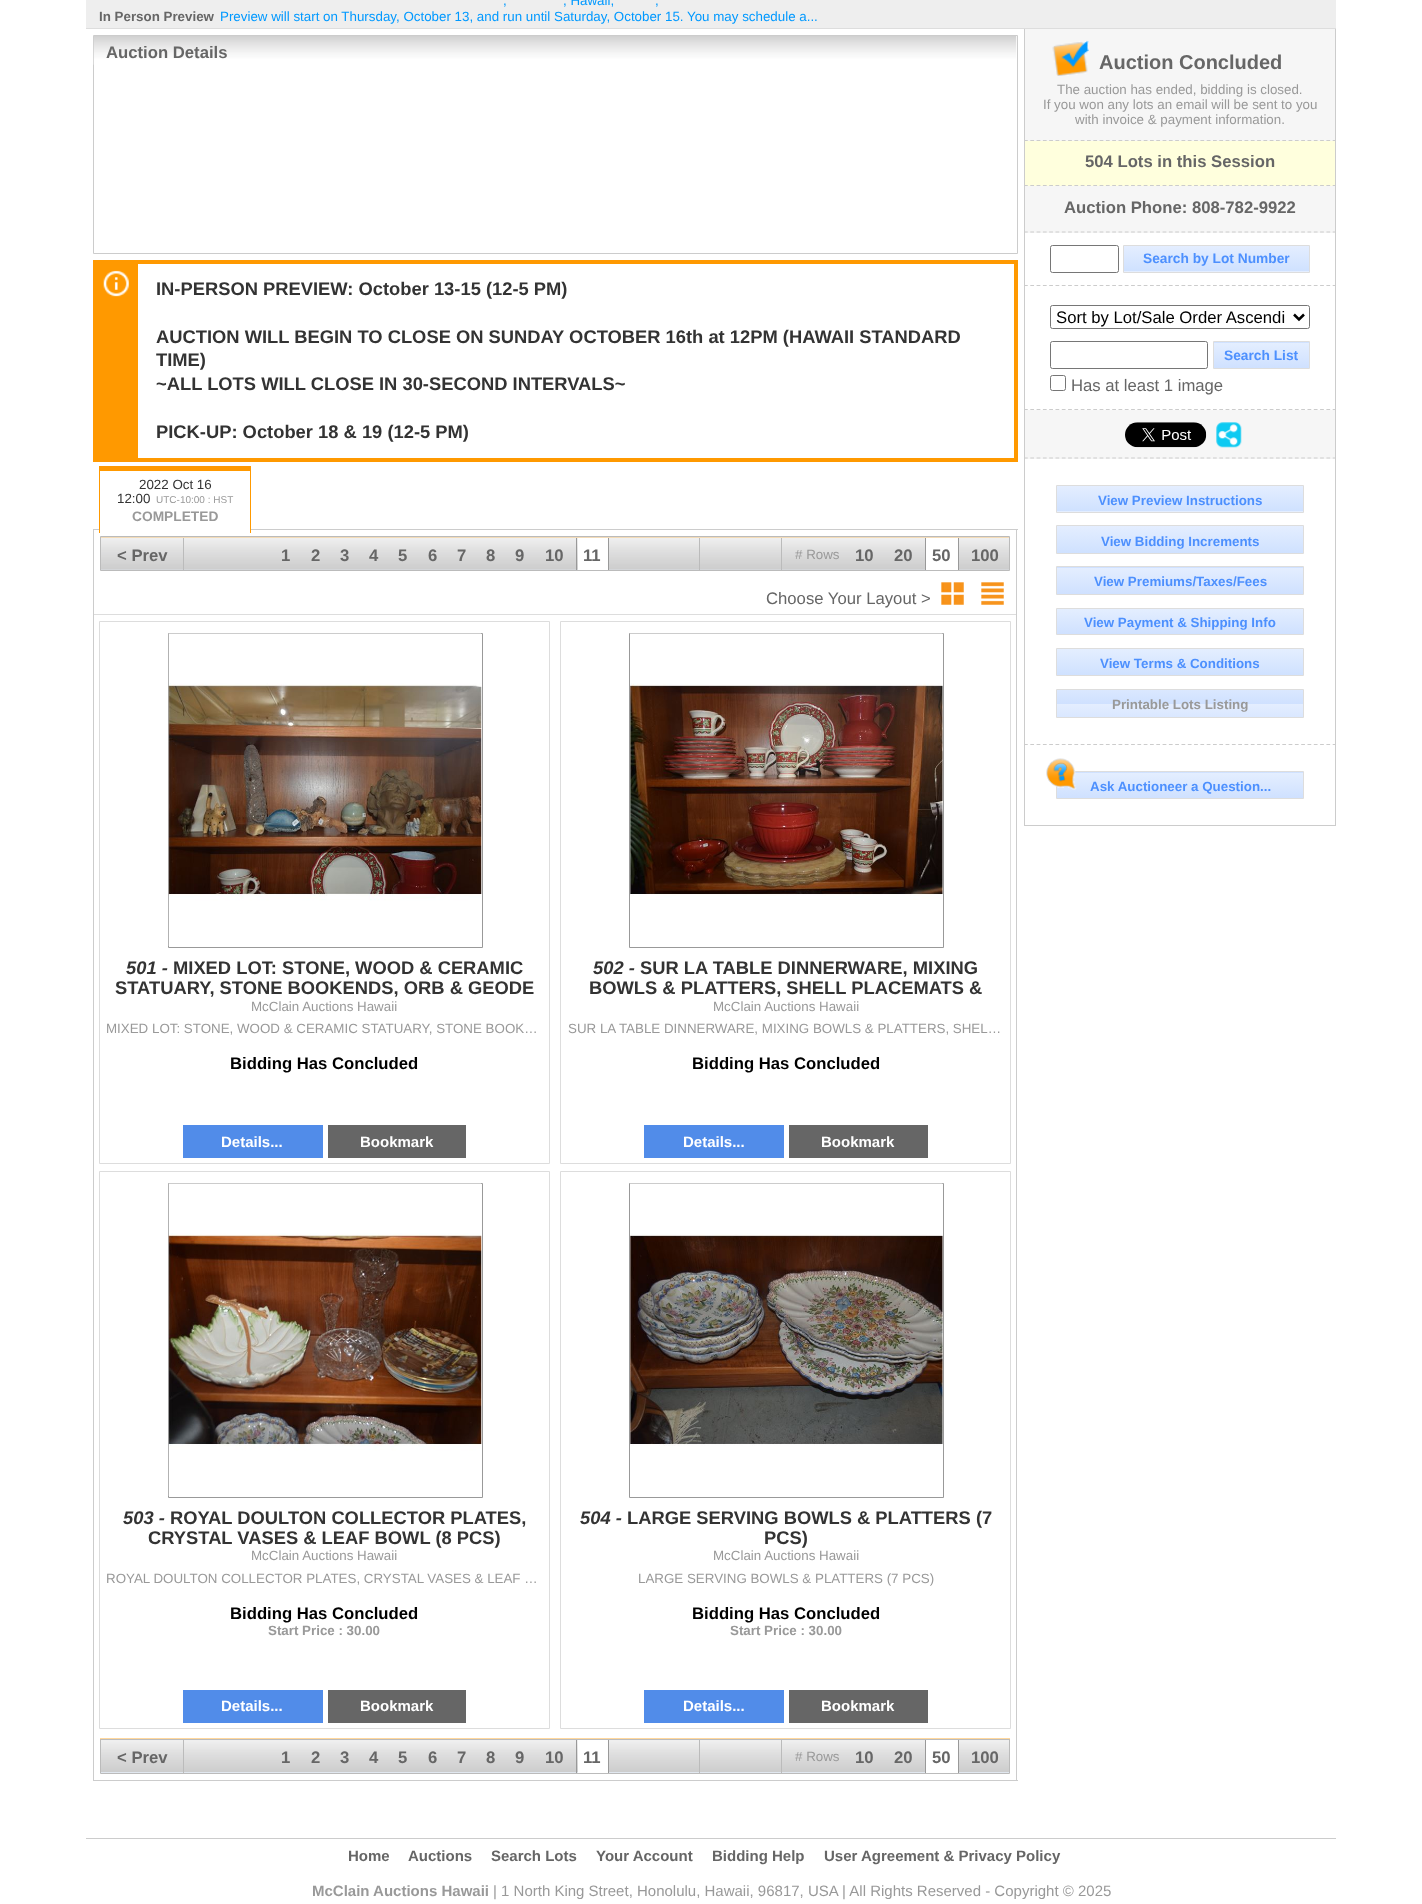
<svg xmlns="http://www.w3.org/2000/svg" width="1422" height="1904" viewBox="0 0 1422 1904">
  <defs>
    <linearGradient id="g1" gradientUnits="userSpaceOnUse" x1="1216" y1="246" x2="1216" y2="271"><stop offset="0" stop-color="#e4eeff"/><stop offset="1" stop-color="#cfe1ff"/></linearGradient>
    <linearGradient id="g2" gradientUnits="userSpaceOnUse" x1="1216" y1="271" x2="1216" y2="296"><stop offset="0" stop-color="#e4eeff"/><stop offset="1" stop-color="#cfe1ff"/></linearGradient>
    <linearGradient id="g3" gradientUnits="userSpaceOnUse" x1="1261" y1="318" x2="1261" y2="343"><stop offset="0" stop-color="#e4eeff"/><stop offset="1" stop-color="#cfe1ff"/></linearGradient>
    <linearGradient id="g4" gradientUnits="userSpaceOnUse" x1="1261" y1="343" x2="1261" y2="368"><stop offset="0" stop-color="#e4eeff"/><stop offset="1" stop-color="#cfe1ff"/></linearGradient>
    <linearGradient id="g5" gradientUnits="userSpaceOnUse" x1="1180" y1="486" x2="1180" y2="511"><stop offset="0" stop-color="#e4eeff"/><stop offset="1" stop-color="#cfe1ff"/></linearGradient>
    <linearGradient id="g6" gradientUnits="userSpaceOnUse" x1="1180" y1="511" x2="1180" y2="536"><stop offset="0" stop-color="#e4eeff"/><stop offset="1" stop-color="#cfe1ff"/></linearGradient>
    <linearGradient id="g7" gradientUnits="userSpaceOnUse" x1="1180" y1="526" x2="1180" y2="553"><stop offset="0" stop-color="#e4eeff"/><stop offset="1" stop-color="#cfe1ff"/></linearGradient>
    <linearGradient id="g8" gradientUnits="userSpaceOnUse" x1="1180" y1="541" x2="1180" y2="568"><stop offset="0" stop-color="#e4eeff"/><stop offset="1" stop-color="#cfe1ff"/></linearGradient>
    <linearGradient id="g9" gradientUnits="userSpaceOnUse" x1="1180" y1="568" x2="1180" y2="594"><stop offset="0" stop-color="#e4eeff"/><stop offset="1" stop-color="#cfe1ff"/></linearGradient>
    <linearGradient id="g10" gradientUnits="userSpaceOnUse" x1="1180" y1="609" x2="1180" y2="634"><stop offset="0" stop-color="#e4eeff"/><stop offset="1" stop-color="#cfe1ff"/></linearGradient>
    <linearGradient id="g11" gradientUnits="userSpaceOnUse" x1="1180" y1="649" x2="1180" y2="675"><stop offset="0" stop-color="#e4eeff"/><stop offset="1" stop-color="#cfe1ff"/></linearGradient>
    <linearGradient id="g12" gradientUnits="userSpaceOnUse" x1="1180" y1="678" x2="1180" y2="704"><stop offset="0" stop-color="#e4eeff"/><stop offset="1" stop-color="#cfe1ff"/></linearGradient>
    <linearGradient id="g13" gradientUnits="userSpaceOnUse" x1="1180" y1="704" x2="1180" y2="730"><stop offset="0" stop-color="#e4eeff"/><stop offset="1" stop-color="#cfe1ff"/></linearGradient>
    <linearGradient id="g14" gradientUnits="userSpaceOnUse" x1="1180" y1="748" x2="1180" y2="773"><stop offset="0" stop-color="#e4eeff"/><stop offset="1" stop-color="#cfe1ff"/></linearGradient>
    <linearGradient id="g15" gradientUnits="userSpaceOnUse" x1="1180" y1="773" x2="1180" y2="798"><stop offset="0" stop-color="#e4eeff"/><stop offset="1" stop-color="#cfe1ff"/></linearGradient>
  </defs>
  <rect width="100%" height="100%" fill="#fff"/>
  <path d="M86 0h1250v28H86z" fill="#eee"/>
  <path d="M86 28h1250v1H86z" fill="#ddd"/>
  <path d="M93.5 35.5h924v218H93.5z" fill="none" stroke="#ccc"/>
  <image x="93" y="36" width="924" height="29" href="img/1.png"/>
  <path d="M138 260h880v4H138z" fill="#f90"/>
  <path d="M1014 260h4v201H1014z" fill="#f90"/>
  <path d="M93 458h925v4H93z" fill="#f90"/>
  <path d="M93 260h45v198H93z" fill="#f90"/>
  <image x="103" y="270" width="26" height="27" href="img/2.png"/>
  <path d="M93 529h925v1H93z" fill="#ccc"/>
  <path d="M100 529h150v1H100z" fill="#fff"/>
  <path d="M99 466h152v5H99z" fill="#f90"/>
  <path d="M250 466h1v67H250z" fill="#f90"/>
  <path d="M99 466h1v67H99z" fill="#f90"/>
  <path d="M1016 530h1v1251H1016z" fill="#ccc"/>
  <path d="M93 1780h925v1H93z" fill="#ccc"/>
  <path d="M93 530h1v1251H93z" fill="#ccc"/>
  <image x="101" y="537" width="908" height="33" href="img/3.png"/>
  <path d="M100.5 536.5h909v34H100.5z" fill="none" stroke="#bbb"/>
  <path d="M183 538h1v32H183z" fill="#bbb"/>
  <path d="M578 538h30v32H578z" fill="#fff"/>
  <path d="M608 538h1v32H608z" fill="#999"/>
  <path d="M576 538h1v32H576z" fill="#999"/>
  <path d="M781 538h1v32H781z" fill="#bbb"/>
  <path d="M699 538h1v32H699z" fill="#bbb"/>
  <path d="M926 538h32v32H926z" fill="#fff"/>
  <path d="M958 538h1v32H958z" fill="#999"/>
  <path d="M925 538h1v32H925z" fill="#999"/>
  <image x="941" y="582" width="23" height="23" href="img/4.png"/>
  <image x="981" y="582" width="23" height="23" href="img/5.png"/>
  <path d="M94 614h922v1H94z" fill="#ddd"/>
  <path d="M99.5 621.5h450v542H99.5z" fill="none" stroke="#ddd"/>
  <path d="M168.5 633.5h314v314H168.5z" fill="none" stroke="#999"/>
  <image x="168" y="633" width="314" height="313" href="img/6.png"/>
  <path d="M183 1125h140v33H183z" fill="#518ce9"/>
  <path d="M328 1125h138v33H328z" fill="#666"/>
  <path d="M560.5 621.5h450v542H560.5z" fill="none" stroke="#ddd"/>
  <path d="M629.5 633.5h314v314H629.5z" fill="none" stroke="#999"/>
  <image x="630" y="633" width="313" height="267" href="img/7.png"/>
  <path d="M644 1125h140v33H644z" fill="#518ce9"/>
  <path d="M789 1125h139v33H789z" fill="#666"/>
  <path d="M99.5 1171.5h450v557H99.5z" fill="none" stroke="#ddd"/>
  <path d="M168.5 1183.5h314v314H168.5z" fill="none" stroke="#999"/>
  <image x="168" y="1183" width="314" height="313" href="img/8.png"/>
  <path d="M183 1690h140v33H183z" fill="#518ce9"/>
  <path d="M328 1690h138v33H328z" fill="#666"/>
  <path d="M560.5 1171.5h450v557H560.5z" fill="none" stroke="#ddd"/>
  <path d="M629.5 1183.5h314v314H629.5z" fill="none" stroke="#999"/>
  <image x="630" y="1183" width="313" height="263" href="img/9.png"/>
  <path d="M644 1690h140v33H644z" fill="#518ce9"/>
  <path d="M789 1690h139v33H789z" fill="#666"/>
  <image x="100" y="1738" width="910" height="35" href="img/10.png"/>
  <path d="M100.5 1739.5h909v34H100.5z" fill="none" stroke="#bbb"/>
  <path d="M183 1740h1v33H183z" fill="#bbb"/>
  <path d="M578 1740h30v33H578z" fill="#fff"/>
  <path d="M608 1740h1v33H608z" fill="#999"/>
  <path d="M576 1740h1v33H576z" fill="#999"/>
  <path d="M781 1740h1v33H781z" fill="#bbb"/>
  <path d="M699 1740h1v33H699z" fill="#bbb"/>
  <path d="M926 1740h32v33H926z" fill="#fff"/>
  <path d="M958 1740h1v33H958z" fill="#999"/>
  <path d="M925 1740h1v33H925z" fill="#999"/>
  <path d="M1025 29h310v112H1025z" fill="#f6f6f6"/>
  <path d="M1335 29h1v112H1335z" fill="#ccc"/>
  <path d="M1024 140.5H1336" fill="none" stroke="#ccc" stroke-width="1.2" stroke-dasharray="3.75 2.55"/>
  <path d="M1024 29h1v112H1024z" fill="#ccc"/>
  <image x="1052" y="40" width="37" height="36" href="img/11.png"/>
  <path d="M1025 141h310v45H1025z" fill="#ffd"/>
  <path d="M1335 141h1v45H1335z" fill="#ccc"/>
  <path d="M1024 185.5H1336" fill="none" stroke="#ccc" stroke-width="1.2" stroke-dasharray="3.75 2.55"/>
  <path d="M1024 141h1v45H1024z" fill="#ccc"/>
  <path d="M1025 186h310v47H1025z" fill="#f6f6f6"/>
  <path d="M1335 186h1v100H1335z" fill="#ccc"/>
  <path d="M1024 232H1336" fill="none" stroke="#ccc" stroke-width="1.2" stroke-dasharray="3.75 2.55"/>
  <path d="M1024 186h1v47H1024z" fill="#ccc"/>
  <path d="M1024 285.5H1336" fill="none" stroke="#ccc" stroke-width="1.2" stroke-dasharray="3.75 2.55"/>
  <path d="M1024 233h1v53H1024z" fill="#ccc"/>
  <rect x="1050.5" y="245.5" width="68" height="27" rx="2" fill="none" stroke="#767676"/>
  <path d="M1124 246h185v25H1124z" fill="url(#g1)"/>
  <path d="M1123 271h187v1H1123z" fill="url(#g2)"/>
  <path d="M1123.5 245.5h186v27H1123.5z" fill="none" stroke="#ddd"/>
  <path d="M1335 286h1v124H1335z" fill="#ccc"/>
  <path d="M1024 409.5H1336" fill="none" stroke="#ccc" stroke-width="1.2" stroke-dasharray="3.75 2.55"/>
  <path d="M1024 286h1v124H1024z" fill="#ccc"/>
  <rect x="1050.5" y="305.5" width="259" height="23" rx="2" fill="none" stroke="#767676"/>
  <path d="M1294 314.5L1299 319.5L1304 314.5" fill="none" stroke="#000" stroke-width="2.5"/>
  <rect x="1050.5" y="341.5" width="157" height="27" rx="2" fill="none" stroke="#767676"/>
  <path d="M1213 342h97v1H1213z" fill="url(#g3)"/>
  <path d="M1214 343h95v25H1214z" fill="url(#g4)"/>
  <path d="M1213.5 341.5h96v27H1213.5z" fill="none" stroke="#ddd"/>
  <rect x="1050.5" y="375.5" width="15" height="15" rx="2" fill="none" stroke="#767676"/>
  <path d="M1025 410h310v49H1025z" fill="#f6f6f6"/>
  <path d="M1335 410h1v335H1335z" fill="#ccc"/>
  <path d="M1024 458H1336" fill="none" stroke="#ccc" stroke-width="1.2" stroke-dasharray="3.75 2.55"/>
  <path d="M1024 410h1v49H1024z" fill="#ccc"/>
  <image x="1125" y="422" width="82" height="26" href="img/12.png"/>
  <image x="1216" y="422" width="26" height="26" href="img/13.png"/>
  <path d="M1024 744.5H1336" fill="none" stroke="#ccc" stroke-width="1.2" stroke-dasharray="3.75 2.55"/>
  <path d="M1024 459h1v286H1024z" fill="#ccc"/>
  <path d="M1057 486h246v25H1057z" fill="url(#g5)"/>
  <path d="M1056 511h248v1H1056z" fill="url(#g6)"/>
  <path d="M1056.5 485.5h247v27H1056.5z" fill="none" stroke="#ddd"/>
  <path d="M1057 526h246v27H1057z" fill="url(#g7)"/>
  <path d="M1056.5 525.5h247v28H1056.5z" fill="none" stroke="#ddd"/>
  <path d="M1056 567h248v1H1056z" fill="url(#g8)"/>
  <path d="M1057 568h246v26H1057z" fill="url(#g9)"/>
  <path d="M1056.5 566.5h247v28H1056.5z" fill="none" stroke="#ddd"/>
  <path d="M1057 609h246v25H1057z" fill="url(#g10)"/>
  <path d="M1056.5 608.5h247v26H1056.5z" fill="none" stroke="#ddd"/>
  <path d="M1057 649h246v26H1057z" fill="url(#g11)"/>
  <path d="M1056.5 648.5h247v27H1056.5z" fill="none" stroke="#ddd"/>
  <path d="M1057 690h246v14H1057z" fill="url(#g12)"/>
  <path d="M1057 704h246v13H1057z" fill="url(#g13)"/>
  <path d="M1056.5 689.5h247v28H1056.5z" fill="none" stroke="#ddd"/>
  <path d="M1335 745h1v81H1335z" fill="#ccc"/>
  <path d="M1024 825h312v1H1024z" fill="#ccc"/>
  <path d="M1024 745h1v81H1024z" fill="#ccc"/>
  <path d="M1075 772h229v1H1075z" fill="url(#g14)"/>
  <path d="M1057 773h246v25H1057z" fill="url(#g15)"/>
  <path d="M1056.5 771.5h247v27H1056.5z" fill="none" stroke="#ddd"/>
  <image x="1046" y="758" width="31" height="32" href="img/14.png"/>
  <path d="M86 1838h1250v1H86z" fill="#ccc"/>
  <g font-family="Liberation Sans" font-size="13.35" fill="#09f">
    <text x="503" y="5">,</text>
    <text x="563" y="5">, Hawaii,</text>
    <text x="655" y="5">,</text>
  </g>
  <text x="99" y="21" font-family="Liberation Sans" font-size="13.35" font-weight="bold" fill="#666">In Person Preview</text>
  <text x="220" y="21" font-family="Liberation Sans" font-size="13.35" fill="#09f">Preview will start on Thursday, October 13, and run until Saturday, October 15. You may schedule a...</text>
  <text x="106" y="58" font-family="Liberation Sans" font-size="16.7" font-weight="bold" fill="#666">Auction Details</text>
  <g font-family="Liberation Sans" font-size="18.35" font-weight="bold" fill="#333">
    <text x="156" y="295">IN-PERSON PREVIEW: October 13-15 (12-5 PM)</text>
    <text x="156" y="343">AUCTION WILL BEGIN TO CLOSE ON SUNDAY OCTOBER 16th at 12PM (HAWAII STANDARD</text>
    <text x="156" y="366">TIME)</text>
    <text x="156" y="390">~ALL LOTS WILL CLOSE IN 30-SECOND INTERVALS~</text>
    <text x="156" y="438">PICK-UP: October 18 &amp; 19 (12-5 PM)</text>
  </g>
  <g font-family="Liberation Sans" font-size="13.35" fill="#333">
    <text x="139" y="489">2022 Oct 16</text>
    <text x="117" y="503">12:00</text>
  </g>
  <text x="156" y="503" font-family="Liberation Sans" font-size="10" fill="#999">UTC-10:00 : HST</text>
  <text x="132" y="521" font-family="Liberation Sans" font-size="13.75" font-weight="bold" fill="#999">COMPLETED</text>
  <g font-family="Liberation Sans" font-size="16.7" font-weight="bold" fill="#666">
    <text x="117" y="561">&lt; Prev</text>
    <text x="281" y="561">1</text>
    <text x="311" y="561">2</text>
    <text x="340" y="561">3</text>
    <text x="369" y="561">4</text>
    <text x="398" y="561">5</text>
    <text x="428" y="561">6</text>
    <text x="457" y="561">7</text>
    <text x="486" y="561">8</text>
    <text x="515" y="561">9</text>
    <text x="545" y="561">10</text>
    <text x="583" y="561">11</text>
  </g>
  <text x="795" y="559" font-family="Liberation Sans" font-size="13.35" fill="#999"># Rows</text>
  <g font-family="Liberation Sans" font-size="16.7" font-weight="bold" fill="#666">
    <text x="855" y="561">10</text>
    <text x="894" y="561">20</text>
    <text x="932" y="561">50</text>
    <text x="971" y="561">100</text>
  </g>
  <text x="766" y="604" font-family="Liberation Sans" font-size="16.7" fill="#666">Choose Your Layout &gt;</text>
  <text x="126" y="974" font-family="Liberation Sans" font-size="18.35" font-weight="bold" font-style="italic" fill="#333">501 -</text>
  <g font-family="Liberation Sans" font-size="18.35" font-weight="bold" fill="#333">
    <text x="173" y="974">MIXED LOT: STONE, WOOD &amp; CERAMIC</text>
    <text x="115" y="994">STATUARY, STONE BOOKENDS, ORB &amp; GEODE</text>
  </g>
  <g font-family="Liberation Sans" font-size="13.35" fill="#999">
    <text x="251" y="1011">McClain Auctions Hawaii</text>
    <text x="106" y="1033">MIXED LOT: STONE, WOOD &amp; CERAMIC STATUARY, STONE BOOK…</text>
  </g>
  <text x="230" y="1069" font-family="Liberation Sans" font-size="16.7" font-weight="bold" fill="#000">Bidding Has Concluded</text>
  <g font-family="Liberation Sans" font-size="15" font-weight="bold" fill="#fff">
    <text x="221" y="1147">Details...</text>
    <text x="360" y="1147">Bookmark</text>
  </g>
  <text x="593" y="974" font-family="Liberation Sans" font-size="18.35" font-weight="bold" font-style="italic" fill="#333">502 -</text>
  <g font-family="Liberation Sans" font-size="18.35" font-weight="bold" fill="#333">
    <text x="640" y="974">SUR LA TABLE DINNERWARE, MIXING</text>
    <text x="589" y="994">BOWLS &amp; PLATTERS, SHELL PLACEMATS &amp;</text>
  </g>
  <g font-family="Liberation Sans" font-size="13.35" fill="#999">
    <text x="713" y="1011">McClain Auctions Hawaii</text>
    <text x="568" y="1033">SUR LA TABLE DINNERWARE, MIXING BOWLS &amp; PLATTERS, SHEL…</text>
  </g>
  <text x="692" y="1069" font-family="Liberation Sans" font-size="16.7" font-weight="bold" fill="#000">Bidding Has Concluded</text>
  <g font-family="Liberation Sans" font-size="15" font-weight="bold" fill="#fff">
    <text x="683" y="1147">Details...</text>
    <text x="821" y="1147">Bookmark</text>
  </g>
  <text x="123" y="1524" font-family="Liberation Sans" font-size="18.35" font-weight="bold" font-style="italic" fill="#333">503 -</text>
  <g font-family="Liberation Sans" font-size="18.35" font-weight="bold" fill="#333">
    <text x="170" y="1524">ROYAL DOULTON COLLECTOR PLATES,</text>
    <text x="148" y="1544">CRYSTAL VASES &amp; LEAF BOWL (8 PCS)</text>
  </g>
  <g font-family="Liberation Sans" font-size="13.35" fill="#999">
    <text x="251" y="1560">McClain Auctions Hawaii</text>
    <text x="106" y="1583">ROYAL DOULTON COLLECTOR PLATES, CRYSTAL VASES &amp; LEAF …</text>
  </g>
  <text x="230" y="1619" font-family="Liberation Sans" font-size="16.7" font-weight="bold" fill="#000">Bidding Has Concluded</text>
  <text x="268" y="1635" font-family="Liberation Sans" font-size="13.35" font-weight="bold" fill="#999">Start Price : 30.00</text>
  <g font-family="Liberation Sans" font-size="15" font-weight="bold" fill="#fff">
    <text x="221" y="1711">Details...</text>
    <text x="360" y="1711">Bookmark</text>
  </g>
  <text x="580" y="1524" font-family="Liberation Sans" font-size="18.35" font-weight="bold" font-style="italic" fill="#333">504 -</text>
  <g font-family="Liberation Sans" font-size="18.35" font-weight="bold" fill="#333">
    <text x="627" y="1524">LARGE SERVING BOWLS &amp; PLATTERS (7</text>
    <text x="764" y="1544">PCS)</text>
  </g>
  <g font-family="Liberation Sans" font-size="13.35" fill="#999">
    <text x="713" y="1560">McClain Auctions Hawaii</text>
    <text x="638" y="1583">LARGE SERVING BOWLS &amp; PLATTERS (7 PCS)</text>
  </g>
  <text x="692" y="1619" font-family="Liberation Sans" font-size="16.7" font-weight="bold" fill="#000">Bidding Has Concluded</text>
  <text x="730" y="1635" font-family="Liberation Sans" font-size="13.35" font-weight="bold" fill="#999">Start Price : 30.00</text>
  <g font-family="Liberation Sans" font-size="15" font-weight="bold" fill="#fff">
    <text x="683" y="1711">Details...</text>
    <text x="821" y="1711">Bookmark</text>
  </g>
  <g font-family="Liberation Sans" font-size="16.7" font-weight="bold" fill="#666">
    <text x="117" y="1763">&lt; Prev</text>
    <text x="281" y="1763">1</text>
    <text x="311" y="1763">2</text>
    <text x="340" y="1763">3</text>
    <text x="369" y="1763">4</text>
    <text x="398" y="1763">5</text>
    <text x="428" y="1763">6</text>
    <text x="457" y="1763">7</text>
    <text x="486" y="1763">8</text>
    <text x="515" y="1763">9</text>
    <text x="545" y="1763">10</text>
    <text x="583" y="1763">11</text>
  </g>
  <text x="795" y="1761" font-family="Liberation Sans" font-size="13.35" fill="#999"># Rows</text>
  <g font-family="Liberation Sans" font-size="16.7" font-weight="bold" fill="#666">
    <text x="855" y="1763">10</text>
    <text x="894" y="1763">20</text>
    <text x="932" y="1763">50</text>
    <text x="971" y="1763">100</text>
  </g>
  <text x="1099" y="69" font-family="Liberation Sans" font-size="20" font-weight="bold" fill="#666">Auction Concluded</text>
  <g font-family="Liberation Sans" font-size="13.35" fill="#999">
    <text x="1057" y="94">The auction has ended, bidding is closed.</text>
    <text x="1043" y="109">If you won any lots an email will be sent to you</text>
    <text x="1075" y="124">with invoice &amp; payment information.</text>
  </g>
  <g font-family="Liberation Sans" font-size="16.7" font-weight="bold" fill="#666">
    <text x="1085" y="167">504 Lots in this Session</text>
    <text x="1064" y="213">Auction Phone: 808-782-9922</text>
  </g>
  <text x="1143" y="263" font-family="Liberation Sans" font-size="13.75" font-weight="bold" fill="#4d90fe">Search by Lot Number</text>
  <text x="1056" y="323" font-family="Liberation Sans" font-size="16.7" fill="#000">Sort by Lot/Sale Order Ascendi</text>
  <text x="1224" y="360" font-family="Liberation Sans" font-size="13.75" font-weight="bold" fill="#4d90fe">Search List</text>
  <text x="1071" y="391" font-family="Liberation Sans" font-size="16.7" fill="#666">Has at least 1 image</text>
  <g font-family="Liberation Sans" font-size="13.35" font-weight="bold" fill="#4d90fe">
    <text x="1098" y="505">View Preview Instructions</text>
    <text x="1101" y="546">View Bidding Increments</text>
    <text x="1094" y="586">View Premiums/Taxes/Fees</text>
    <text x="1084" y="627">View Payment &amp; Shipping Info</text>
    <text x="1100" y="668">View Terms &amp; Conditions</text>
  </g>
  <text x="1112" y="709" font-family="Liberation Sans" font-size="13.35" font-weight="bold" fill="#999">Printable Lots Listing</text>
  <text x="1090" y="791" font-family="Liberation Sans" font-size="13.35" font-weight="bold" fill="#4d90fe">Ask Auctioneer a Question...</text>
  <g font-family="Liberation Sans" font-size="15" font-weight="bold" fill="#666">
    <text x="348" y="1861">Home</text>
    <text x="408" y="1861">Auctions</text>
    <text x="491" y="1861">Search Lots</text>
    <text x="596" y="1861">Your Account</text>
    <text x="712" y="1861">Bidding Help</text>
    <text x="824" y="1861">User Agreement &amp; Privacy Policy</text>
  </g>
  <text x="312" y="1896" font-family="Liberation Sans" font-size="15" font-weight="bold" fill="#999">McClain Auctions Hawaii</text>
  <text x="493" y="1896" font-family="Liberation Sans" font-size="15" fill="#999">| 1 North King Street, Honolulu, Hawaii, 96817, USA | All Rights Reserved - Copyright © 2025</text>
</svg>
